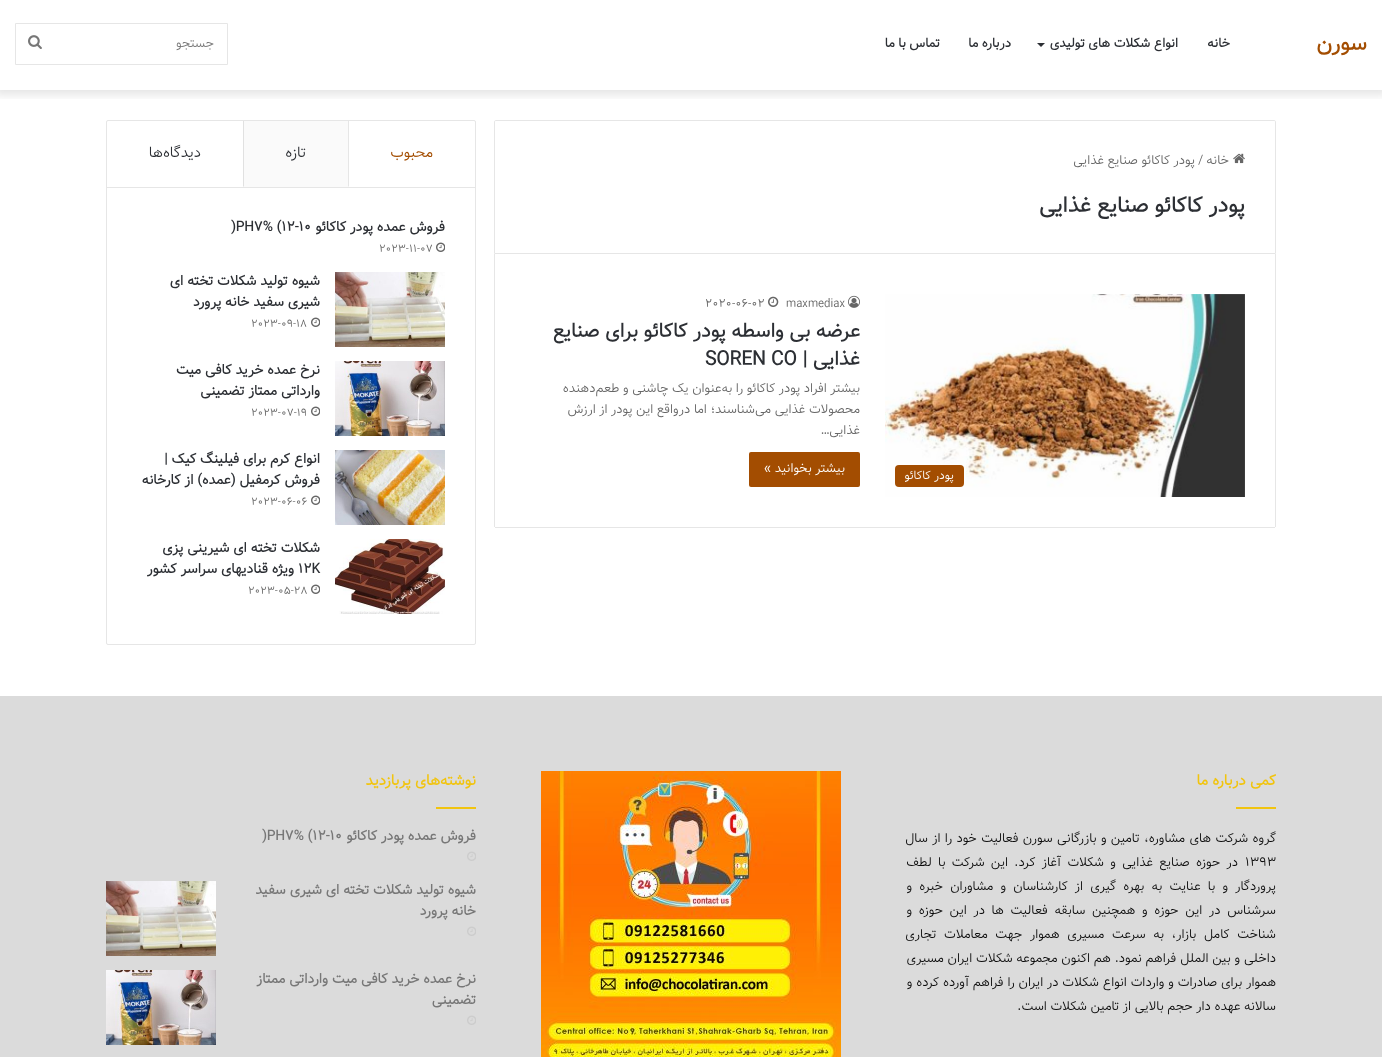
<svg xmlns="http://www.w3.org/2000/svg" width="1382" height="1057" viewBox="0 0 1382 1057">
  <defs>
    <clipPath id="clip1"><path d="M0 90h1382v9H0z"/></clipPath>
  </defs>
  <rect width="100%" height="100%" fill="#fff"/>
  <g clip-path="url(#clip1)">
    <path d="M-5 -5h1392v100H-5z" fill="#0000001a" filter="blur(5px)"/>
  </g>
  <path d="M1037 43H1045L1041 47Z" fill="#2c2f34"/>
  <path d="M15.5 23.5h212v41H15.5z" fill="none" stroke="#e6e6e6"/>
  <image x="28" y="35" width="14" height="14" href="img/1.png"/>
  <path d="M496 120.5H1274C1275 120.5 1275.5 121 1275.5 122V253.5H494.5V122C494.5 121 495 120.5 496 120.5Z" fill="none" stroke="#e6e6e6"/>
  <image x="1233" y="153" width="12" height="11" href="img/2.png"/>
  <path d="M1275 254h1v273H1275z" fill="#e6e6e6"/>
  <path d="M495 527h780v1H495z" fill="#e6e6e6"/>
  <path d="M494 254h1v273H494z" fill="#e6e6e6"/>
  <image x="885" y="294" width="360" height="203" href="img/3.png"/>
  <rect x="895" y="465" width="69" height="22" rx="4" fill="#a34d01"/>
  <image x="848" y="295" width="12" height="13" href="img/4.png"/>
  <image x="768" y="296" width="11" height="11" href="img/5.png"/>
  <rect x="749" y="452" width="111" height="35" rx="2" fill="#a34d01"/>
  <rect x="106.5" y="120.5" width="369" height="524" rx="1.5" fill="none" stroke="#e6e6e6"/>
  <path d="M107 187h368v1H107z" fill="#e6e6e6"/>
  <path d="M348 187V121H349V186Z" fill="#e6e6e6"/>
  <path d="M243 121h105v66H243z" fill="#fafafa"/>
  <path d="M243 187V121H244V186Z" fill="#e1e1e1"/>
  <image x="436" y="242" width="9" height="10" href="img/6.png"/>
  <image x="335" y="272" width="110" height="75" href="img/7.png"/>
  <image x="311" y="317" width="9" height="10" href="img/6.png"/>
  <image x="335" y="361" width="110" height="75" href="img/8.png"/>
  <image x="311" y="406" width="9" height="10" href="img/6.png"/>
  <image x="335" y="450" width="110" height="75" href="img/9.png"/>
  <image x="311" y="495" width="9" height="10" href="img/6.png"/>
  <image x="335" y="539" width="110" height="75" href="img/10.png"/>
  <image x="311" y="584" width="9" height="10" href="img/6.png"/>
  <path d="M0 696h1382v361H0z" fill="#dbdbdb"/>
  <path d="M1236 807h40v2H1236z" fill="#f1c40f"/>
  <image x="541" y="771" width="300" height="286" href="img/11.png"/>
  <path d="M436 807h40v2H436z" fill="#f1c40f"/>
  <image x="467" y="851" width="9" height="10" href="img/12.png"/>
  <image x="467" y="926" width="9" height="10" href="img/12.png"/>
  <image x="106" y="881" width="110" height="75" href="img/7.png"/>
  <image x="467" y="1015" width="9" height="10" href="img/12.png"/>
  <image x="106" y="970" width="110" height="75" href="img/8.png"/>
  <text x="1367" y="50" font-family="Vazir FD" font-size="22" font-weight="bold" direction="rtl" fill="#a34d01">سورن</text>
  <g font-family="Vazir FD" font-size="13" font-weight="bold" direction="rtl" fill="#2c2f34">
    <text x="1230" y="47">خانه</text>
    <text x="1178" y="47">انواع شکلات های تولیدی</text>
    <text x="1011" y="47">درباره ما</text>
    <text x="940" y="47">تماس با ما</text>
  </g>
  <text x="214" y="47" font-family="Vazir FD" font-size="13" font-weight="300" direction="rtl" fill="#777">جستجو</text>
  <text x="1229" y="164" font-family="Vazir FD" font-size="13" font-weight="300" direction="rtl" fill="#666">خانه</text>
  <text x="1198" y="164" font-family="Vazir FD" font-size="13" font-weight="300" fill="#666">/</text>
  <text x="1195" y="164" font-family="Vazir FD" font-size="13" font-weight="300" direction="rtl" fill="#666">پودر کاکائو صنایع غذایی</text>
  <text x="1245" y="212" font-family="Vazir FD" font-size="22" font-weight="bold" direction="rtl" fill="#2c2f34">پودر کاکائو صنایع غذایی</text>
  <text x="954" y="479" font-family="Vazir FD" font-size="12" font-weight="300" direction="rtl" fill="#fff">پودر کاکائو</text>
  <g font-family="Vazir FD" font-size="12" font-weight="300" fill="#666">
    <text x="786" y="307">maxmediax</text>
    <text x="705" y="307">2020-06-02</text>
  </g>
  <g font-family="Vazir FD" font-size="20" font-weight="bold" direction="rtl" fill="#2c2f34">
    <text x="860" y="337">عرضه بی واسطه پودر کاکائو برای صنایع</text>
    <text x="860" y="365">غذایی |</text>
  </g>
  <text x="705" y="365" font-family="Vazir FD" font-size="20" font-weight="bold" fill="#2c2f34">SOREN CO</text>
  <g font-family="Vazir FD" font-size="13" font-weight="300" direction="rtl" fill="#666">
    <text x="860" y="392">بیشتر افراد پودر کاکائو را به‌عنوان یک چاشنی و طعم‌دهنده</text>
    <text x="860" y="413">محصولات غذایی می‌شناسند؛ اما درواقع این پودر از ارزش</text>
    <text x="860" y="434">غذایی…</text>
  </g>
  <text x="845" y="472" font-family="Vazir FD" font-size="13" font-weight="300" direction="rtl" fill="#fff">بیشتر بخوانید »</text>
  <text x="433" y="157" font-family="Vazir FD" font-size="15" font-weight="300" direction="rtl" fill="#a34d01">محبوب</text>
  <g font-family="Vazir FD" font-size="15" font-weight="300" direction="rtl" fill="#2c2f34">
    <text x="306" y="157">تازه</text>
    <text x="201" y="157">دیدگاه‌ها</text>
  </g>
  <text x="445" y="231" font-family="Vazir FD" font-size="14" font-weight="bold" direction="rtl" fill="#2c2f34">فروش عمده پودر کاکائو</text>
  <text x="231" y="231" font-family="Vazir FD" font-size="14" font-weight="bold" fill="#2c2f34">)PH7% (12-10</text>
  <text x="379" y="252" font-family="Vazir FD" font-size="11" font-weight="300" fill="#666">2023-11-07</text>
  <g font-family="Vazir FD" font-size="14" font-weight="bold" direction="rtl" fill="#2c2f34">
    <text x="320" y="285">شیوه تولید شکلات تخته ای</text>
    <text x="320" y="306">شیری سفید خانه پرورد</text>
  </g>
  <text x="251" y="327" font-family="Vazir FD" font-size="11" font-weight="300" fill="#666">2023-09-18</text>
  <g font-family="Vazir FD" font-size="14" font-weight="bold" direction="rtl" fill="#2c2f34">
    <text x="320" y="374">نرخ عمده خرید کافی میت</text>
    <text x="320" y="395">وارداتی ممتاز تضمینی</text>
  </g>
  <text x="251" y="416" font-family="Vazir FD" font-size="11" font-weight="300" fill="#666">2023-07-19</text>
  <g font-family="Vazir FD" font-size="14" font-weight="bold" direction="rtl" fill="#2c2f34">
    <text x="320" y="463">انواع کرم برای فیلینگ کیک |</text>
    <text x="320" y="484">فروش کرمفیل (عمده) از کارخانه</text>
  </g>
  <text x="251" y="505" font-family="Vazir FD" font-size="11" font-weight="300" fill="#666">2023-06-06</text>
  <text x="320" y="552" font-family="Vazir FD" font-size="14" font-weight="bold" direction="rtl" fill="#2c2f34">شکلات تخته ای شیرینی پزی</text>
  <text x="298" y="573" font-family="Vazir FD" font-size="14" font-weight="bold" fill="#2c2f34">12K</text>
  <text x="294" y="573" font-family="Vazir FD" font-size="14" font-weight="bold" direction="rtl" fill="#2c2f34">ویژه قنادیهای سراسر کشور</text>
  <text x="248" y="594" font-family="Vazir FD" font-size="11" font-weight="300" fill="#666">2023-05-28</text>
  <text x="1276" y="785" font-family="Vazir FD" font-size="15" font-weight="bold" direction="rtl" fill="#f1c40f">کمی درباره ما</text>
  <text x="1276" y="842" word-spacing="0.75" font-family="Vazir FD" font-size="13" font-weight="300" direction="rtl" fill="#0a0a0a">گروه شرکت های مشاوره، تامین و بازرگانی سورن فعالیت خود را از سال</text>
  <text x="1245" y="866" font-family="Vazir FD" font-size="13" font-weight="300" fill="#0a0a0a">۱۳۹۳</text>
  <g font-family="Vazir FD" font-size="13" font-weight="300" direction="rtl" fill="#0a0a0a">
    <text x="1238" y="866" word-spacing="2.75">در حوزه صنایع غذایی و شکلات آغاز کرد. این شرکت با لطف</text>
    <text x="1276" y="890" word-spacing="3.6">پروردگار و با عنایت به بهره گیری از کارشناسان و مشاوران خبره و</text>
    <text x="1276" y="914" word-spacing="3.1">سرشناس در این حوزه و همچنین سابقه فعالیت ها در این حوزه و</text>
    <text x="1276" y="938" word-spacing="4">شناخت کامل بازار، به سرعت مسیری هموار جهت معاملات تجاری</text>
    <text x="1276" y="962" word-spacing="0.25">داخلی و بین الملل فراهم نمود. هم اکنون مجموعه شکلات ایران مسیری</text>
    <text x="1276" y="986" word-spacing="0.25">هموار برای صادرات و واردات انواع شکلات در ایران را فراهم آورده کرده و</text>
    <text x="1276" y="1010">سالانه عهده دار حجم بالایی از تامین شکلات است.</text>
  </g>
  <text x="476" y="785" font-family="Vazir FD" font-size="15" font-weight="bold" direction="rtl" fill="#f1c40f">نوشته‌های پربازدید</text>
  <text x="476" y="840" font-family="Vazir FD" font-size="14" font-weight="bold" direction="rtl" fill="#777">فروش عمده پودر کاکائو</text>
  <text x="262" y="840" font-family="Vazir FD" font-size="14" font-weight="bold" fill="#777">)PH7% (12-10</text>
  <g font-family="Vazir FD" font-size="14" font-weight="bold" direction="rtl" fill="#777">
    <text x="476" y="894">شیوه تولید شکلات تخته ای شیری سفید</text>
    <text x="476" y="915">خانه پرورد</text>
    <text x="476" y="983">نرخ عمده خرید کافی میت وارداتی ممتاز</text>
    <text x="476" y="1004">تضمینی</text>
  </g>
</svg>
